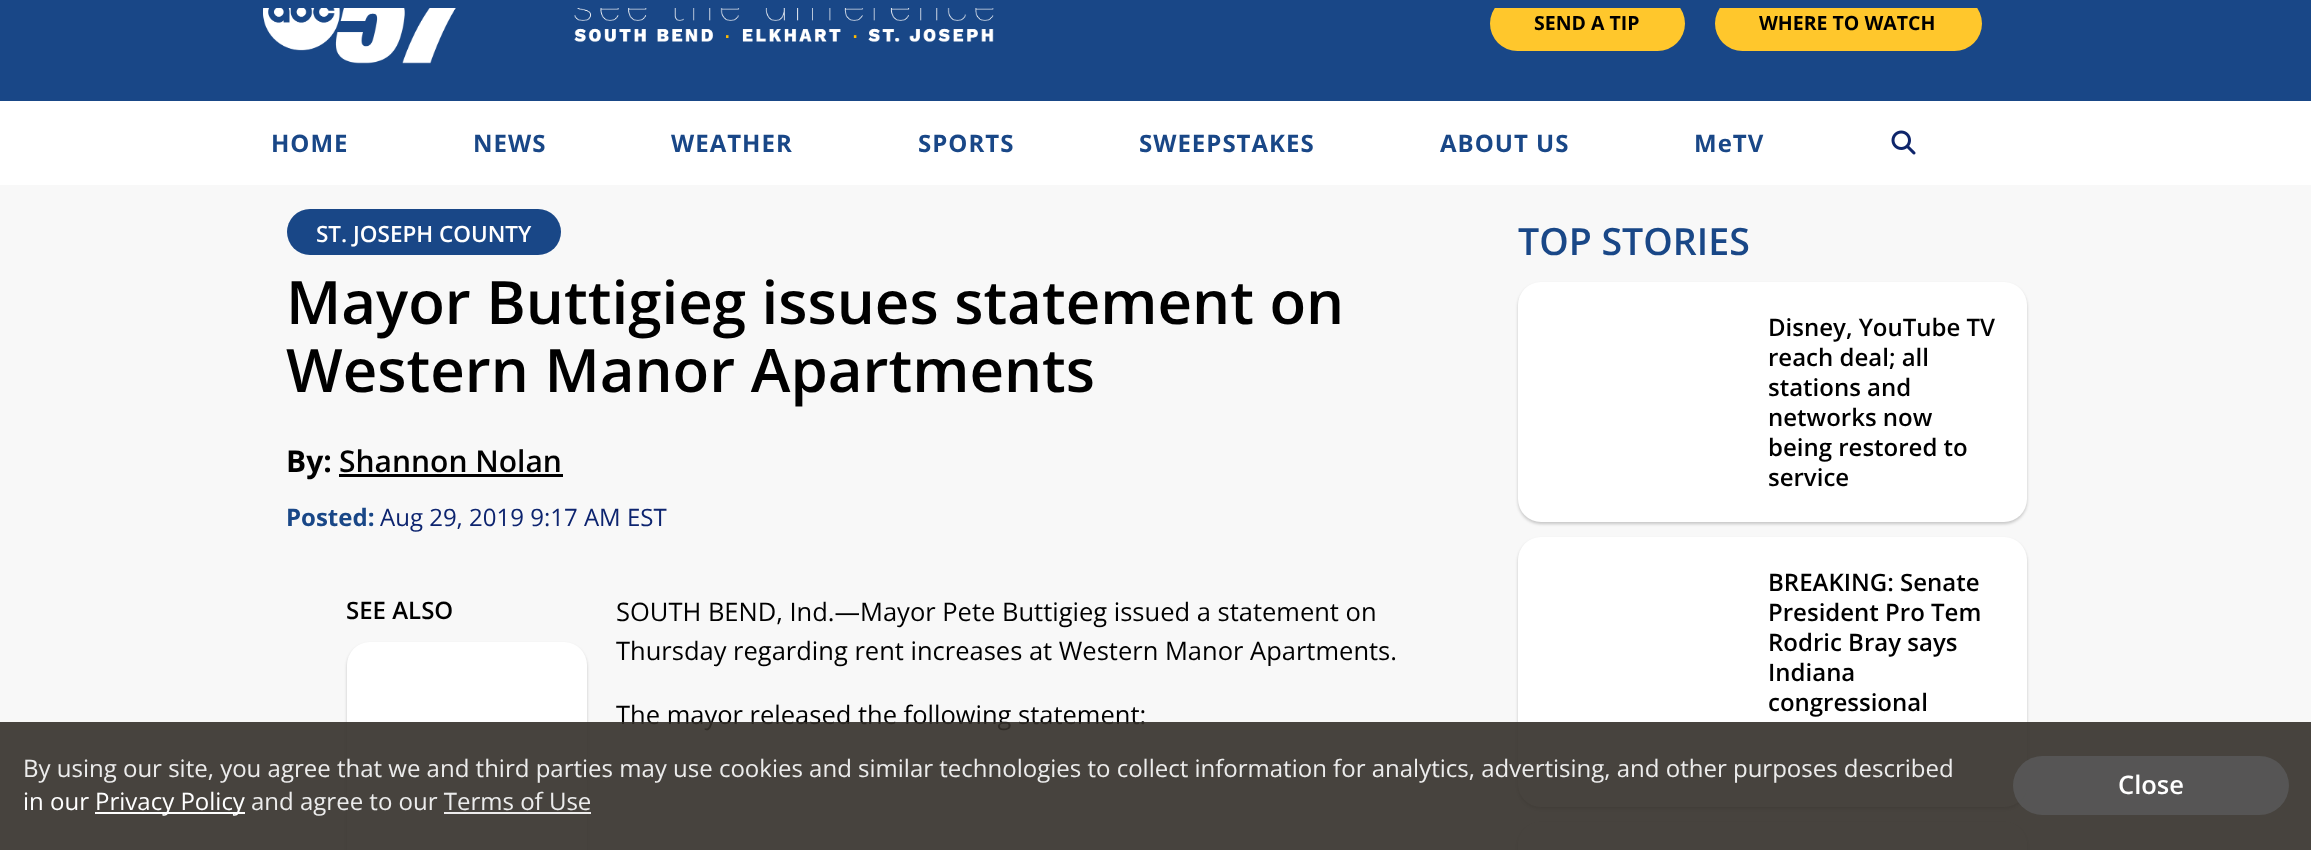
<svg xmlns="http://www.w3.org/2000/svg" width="2311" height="850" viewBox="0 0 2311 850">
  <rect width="100%" height="100%" fill="#f8f8f8"/>
  <path d="M0 8h2311v93H0z" fill="#194787"/>
  <rect x="1490" y="-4" width="195" height="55" rx="27.5" fill="#ffc72c"/>
  <rect x="1715" y="-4" width="267" height="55" rx="27.5" fill="#ffc72c"/>
  <path d="M0 0h2311v8H0z" fill="#194787"/>
  <image x="263" y="8" width="731" height="56" href="img/1.png"/>
  <path d="M0 101h2311v84H0z" fill="#fff"/>
  <image x="1891" y="130" width="25" height="25" href="img/2.png"/>
  <rect x="287" y="209" width="274" height="46" rx="23" fill="#194787"/>
  <path d="M339 474h224v3H339z" fill="#000"/>
  <rect x="347" y="644" width="240" height="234" rx="23" fill="#00000033" filter="blur(1.5px)"/>
  <rect x="347" y="642" width="240" height="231" rx="23" fill="#fff"/>
  <rect x="1518" y="284" width="509" height="240" rx="23" fill="#00000033" filter="blur(1.5px)"/>
  <rect x="1518" y="282" width="509" height="240" rx="23" fill="#fff"/>
  <rect x="1518" y="539" width="509" height="270" rx="23" fill="#00000033" filter="blur(1.5px)"/>
  <rect x="1518" y="537" width="509" height="270" rx="23" fill="#fff"/>
  <rect x="1518" y="824" width="509" height="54" rx="23" fill="#00000033" filter="blur(1.5px)"/>
  <rect x="1518" y="822" width="509" height="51" rx="23" fill="#fff"/>
  <g font-family="Open Sans" font-size="19.5" font-weight="bold" fill="#000">
    <text x="1534" y="30">SEND A TIP</text>
    <text x="1759" y="30">WHERE TO WATCH</text>
  </g>
  <g font-family="Open Sans" font-size="24" font-weight="bold" letter-spacing="1" fill="#194787">
    <text x="271" y="152">HOME</text>
    <text x="473" y="152">NEWS</text>
    <text x="671" y="152">WEATHER</text>
    <text x="918" y="152">SPORTS</text>
    <text x="1139" y="152">SWEEPSTAKES</text>
    <text x="1440" y="152">ABOUT US</text>
    <text x="1694" y="152">MeTV</text>
  </g>
  <text x="316" y="242" font-family="Open Sans" font-size="22.5" font-weight="600" fill="#fff">ST. JOSEPH COUNTY</text>
  <g font-family="Open Sans" font-size="60" font-weight="600" fill="#000">
    <text x="286" y="324">Mayor Buttigieg issues statement on</text>
    <text x="286" y="392">Western Manor Apartments</text>
  </g>
  <text x="286" y="472" font-family="Open Sans" font-size="30" font-weight="bold" fill="#000">By:</text>
  <text x="339" y="472" font-family="Open Sans" font-size="30" font-weight="600" fill="#000">Shannon Nolan</text>
  <text x="286" y="526" font-family="Open Sans" font-size="24" font-weight="bold" fill="#194787">Posted:</text>
  <text x="380" y="526" font-family="Open Sans" font-size="24" fill="#0d246f">Aug 29, 2019 9:17 AM EST</text>
  <text x="346" y="619" font-family="Open Sans" font-size="24" font-weight="600" fill="#000">SEE ALSO</text>
  <g font-family="Open Sans" font-size="25.5" fill="#000">
    <text x="616" y="621">SOUTH BEND, Ind.—Mayor Pete Buttigieg issued a statement on</text>
    <text x="616" y="660">Thursday regarding rent increases at Western Manor Apartments.</text>
    <text x="616" y="724">The mayor released the following statement:</text>
  </g>
  <text x="1518" y="255" font-family="Open Sans" font-size="37.5" font-weight="600" fill="#194787">TOP STORIES</text>
  <g font-family="Open Sans" font-size="24" font-weight="600" fill="#000">
    <text x="1768" y="336">Disney, YouTube TV</text>
    <text x="1768" y="366">reach deal; all</text>
    <text x="1768" y="396">stations and</text>
    <text x="1768" y="426">networks now</text>
    <text x="1768" y="456">being restored to</text>
    <text x="1768" y="486">service</text>
    <text x="1768" y="591">BREAKING: Senate</text>
    <text x="1768" y="621">President Pro Tem</text>
    <text x="1768" y="651">Rodric Bray says</text>
    <text x="1768" y="681">Indiana</text>
    <text x="1768" y="711">congressional</text>
  </g>
  <path d="M0 722h2311v128H0z" fill="#332f29e6"/>
  <text x="23" y="777" font-family="Open Sans" font-size="24" fill="#ececec">By using our site, you agree that we and third parties may use cookies and similar technologies to collect information for analytics, advertising, and other purposes described</text>
  <text x="23" y="810" font-family="Open Sans" font-size="24" fill="#fff">in our</text>
  <path d="M95 812h150v2H95z" fill="#fefefe"/>
  <text x="95" y="810" font-family="Open Sans" font-size="24" fill="#fff">Privacy Policy</text>
  <text x="251" y="810" font-family="Open Sans" font-size="24" fill="#ececec">and agree to our Terms of Use</text>
  <path d="M444 812h147v2H444z" fill="#ffffffe6"/>
  <rect x="2013" y="756" width="276" height="59" rx="29.5" fill="#585858e6"/>
  <text x="2118" y="794" font-family="Open Sans" font-size="25.5" font-weight="600" fill="#fff">Close</text>
</svg>
